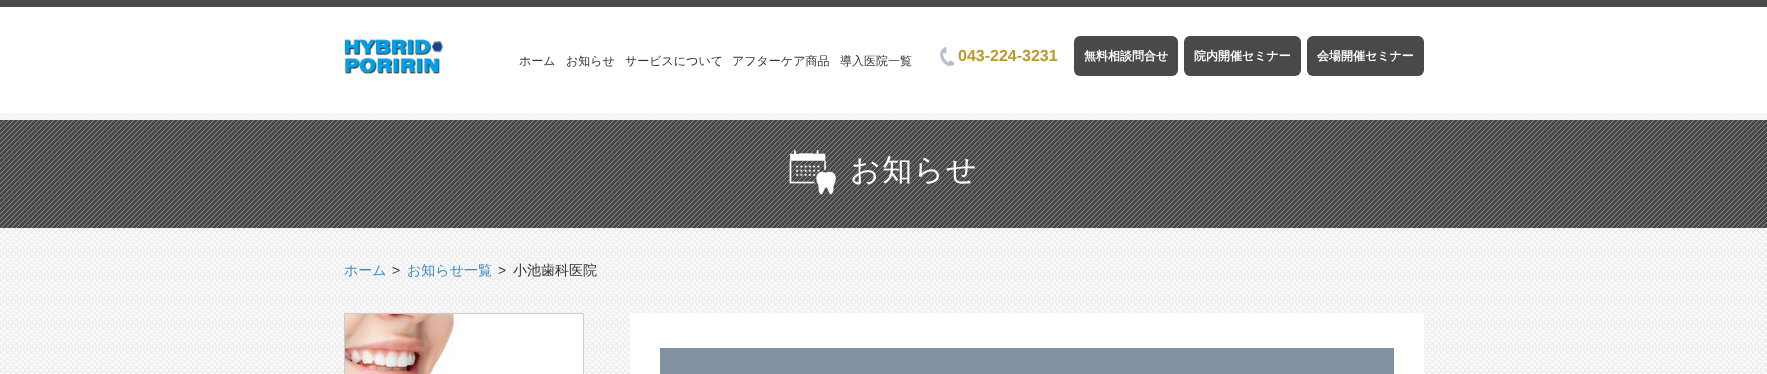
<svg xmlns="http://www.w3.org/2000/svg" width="1767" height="374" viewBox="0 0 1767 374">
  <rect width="100%" height="100%" fill="#fff"/>
  <image x="0" y="113" width="1767" height="115" href="img/3.png"/>
  <path d="M0 113h1767v7H0z" fill="#fffffff2"/>
  <path d="M0 0h1767v7H0z" fill="#494949"/>
  <image x="344" y="39" width="100" height="35" href="img/1.png"/>
  <image x="940" y="47" width="15" height="19" href="img/2.png"/>
  <rect x="1074" y="36" width="104" height="40" rx="6" fill="#494949"/>
  <rect x="1184" y="36" width="117" height="40" rx="6" fill="#494949"/>
  <rect x="1307" y="36" width="117" height="40" rx="6" fill="#494949"/>
  <image x="789" y="150" width="47" height="45" href="img/4.png"/>
  <image x="0" y="228" width="1767" height="146" href="img/5.png"/>
  <path d="M344.5 313.5h239v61H344.5z" fill="none" stroke="#ccc"/>
  <image x="345" y="314" width="238" height="60" href="img/6.png"/>
  <path d="M630 313h794v61H630z" fill="#fff"/>
  <path d="M660 348h734v26H660z" fill="#8290a2"/>
  <g font-family="WenQuanYi Zen Hei" font-size="12" font-weight="500" fill="#333">
    <text x="519" y="65">ホーム</text>
    <text x="566" y="65">お知らせ</text>
    <text x="625" y="65">サービスについて</text>
    <text x="732" y="65">アフターケア商品</text>
    <text x="840" y="65">導入医院一覧</text>
  </g>
  <text x="958" y="61" font-family="Liberation Sans" font-size="16" font-weight="bold" fill="#bc982e">043-224-3231</text>
  <g font-family="WenQuanYi Zen Hei" font-size="12" font-weight="bold" fill="#fff">
    <text x="1084" y="60">無料相談問合せ</text>
    <text x="1194" y="60">院内開催セミナー</text>
    <text x="1317" y="60">会場開催セミナー</text>
  </g>
  <text x="850" y="180" font-family="WenQuanYi Zen Hei" font-size="30" font-weight="500" letter-spacing="1.5" fill="#fff">お知らせ</text>
  <text x="344" y="275" font-family="WenQuanYi Zen Hei" font-size="14" font-weight="500" fill="#3e8bbf">ホーム</text>
  <text x="392" y="275" font-family="Liberation Sans" font-size="14" fill="#333">&gt;</text>
  <text x="407" y="275" font-family="WenQuanYi Zen Hei" font-size="14" font-weight="500" fill="#3e8bbf">お知らせ一覧</text>
  <text x="498" y="275" font-family="Liberation Sans" font-size="14" fill="#333">&gt;</text>
  <text x="513" y="275" font-family="WenQuanYi Zen Hei" font-size="14" font-weight="500" fill="#333">小池歯科医院</text>
</svg>
